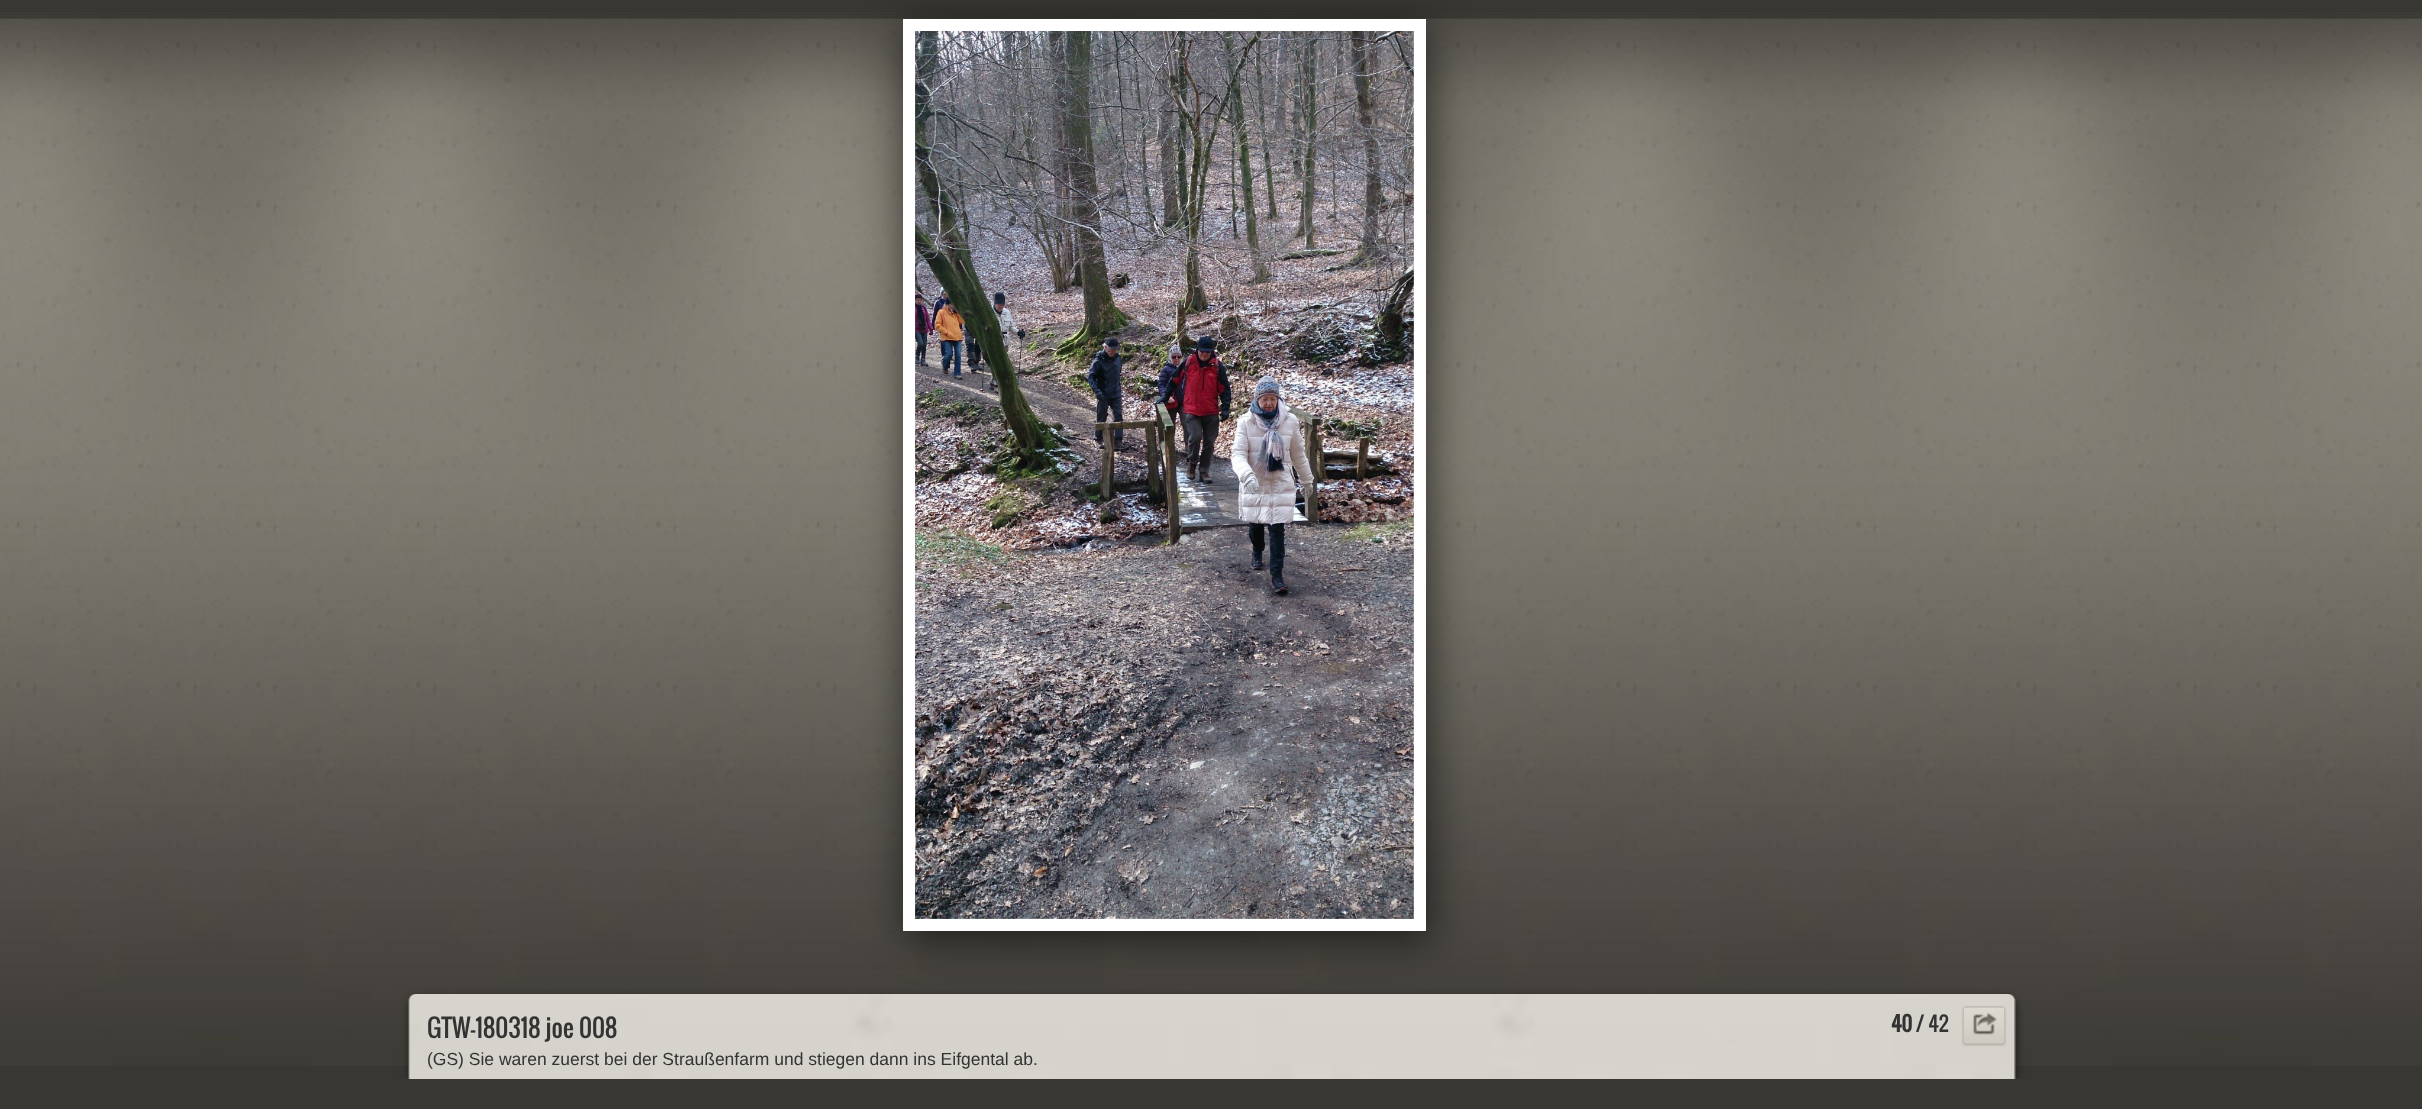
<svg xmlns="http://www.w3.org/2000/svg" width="2422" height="1109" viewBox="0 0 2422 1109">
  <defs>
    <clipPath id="clip1"><path d="M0 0h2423v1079H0z"/></clipPath>
    <linearGradient id="g1" gradientUnits="userSpaceOnUse" x1="1984" y1="1008" x2="1984" y2="1043"><stop offset="0" stop-color="#dedad2"/><stop offset="1" stop-color="#cdcac2"/></linearGradient>
  </defs>
  <rect width="100%" height="100%" fill="#393733"/>
  <image x="0" y="12" width="2422" height="1054" href="img/1.png"/>
  <path d="M906 26h524v913H906z" fill="#00000099" filter="blur(20px)"/>
  <path d="M903 19h523v912H903z" fill="#fff"/>
  <image x="915" y="31" width="499" height="888" href="img/2.png"/>
  <g clip-path="url(#clip1)">
    <rect x="410" y="998" width="1606" height="85" rx="8" fill="#00000099" filter="blur(5px)"/>
  </g>
  <image x="408" y="994" width="1608" height="85" href="img/3.png"/>
  <rect x="1963" y="1008" width="42" height="37" rx="2.5" fill="#00000033" filter="blur(1px)"/>
  <rect x="1964" y="1008" width="40" height="35" rx="1" fill="url(#g1)"/>
  <rect x="1963.5" y="1006.5" width="41" height="37" rx="2" fill="none" stroke="#c2beb4"/>
  <image x="1973" y="1013" width="24" height="22" href="img/4.png"/>
  <text x="427" y="1038" font-family="Oswald" font-size="24.5" fill="#333">GTW-180318 joe 008</text>
  <text x="427" y="1065" font-family="Liberation Sans" font-size="17.5" fill="#333">(GS) Sie waren zuerst bei der Straußenfarm und stiegen dann ins Eifgental ab.</text>
  <text x="1891" y="1032" font-family="Oswald" font-size="20" font-weight="bold" fill="#333">40</text>
  <text x="1916" y="1032" font-family="Oswald" font-size="20" fill="#333">/ 42</text>
</svg>
